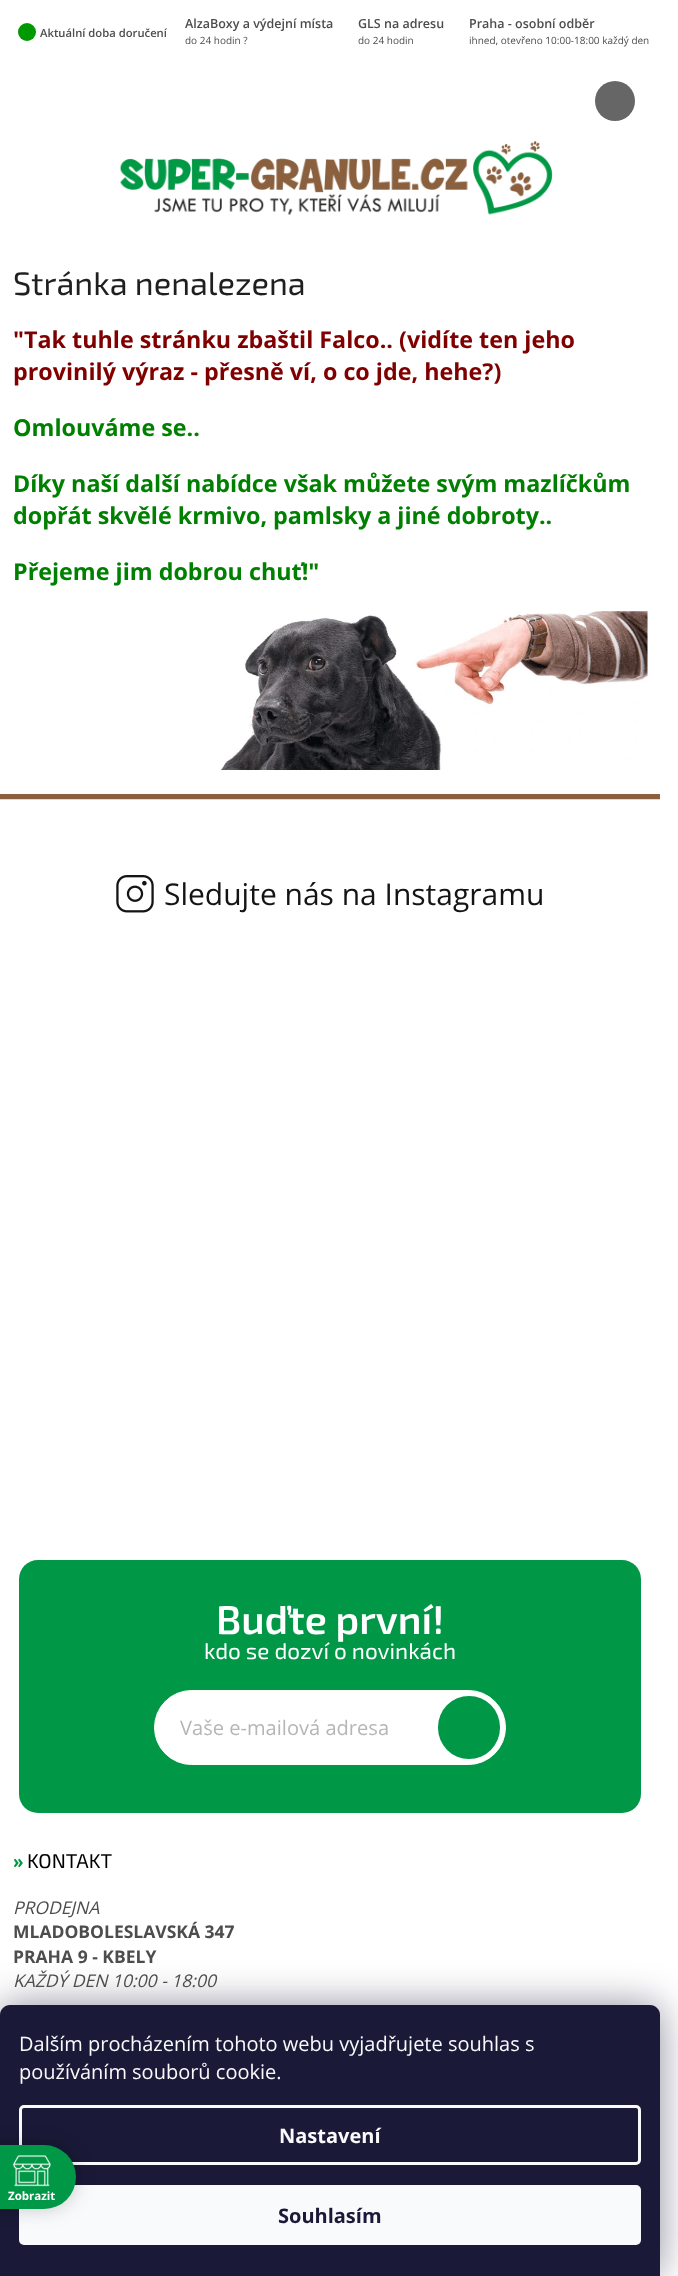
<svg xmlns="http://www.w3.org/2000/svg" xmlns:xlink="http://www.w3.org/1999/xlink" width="678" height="2276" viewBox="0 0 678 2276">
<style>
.cls-1{font:600 12.5px Open Sans;fill:#4d4d4d}
.cls-2{font:600 11.25px Open Sans;fill:#4d4d4d}
.cls-3{font:10px Open Sans;fill:#4d4d4d}
.cls-4{font:32.5px 'Exo 2';fill:#1f1f1f}
.cls-5{font:bold 23.3px Open Sans;fill:#800000}
.cls-6{font:bold 23.3px Open Sans;fill:#008000}
.cls-7{font:30px Open Sans;fill:#141414}
.cls-8{font:600 40px 'Exo 2';fill:#ffffff}
.cls-9{font:22.5px 'Exo 2';fill:#ffffff}
.cls-10{font:20.1px Open Sans;fill:#b6b6b6}
.cls-11{font:bold 20px 'Exo 2';fill:#009846}
.cls-12{font:20px 'Exo 2';fill:#000000}
.cls-13{font:italic 17.5px Open Sans;fill:#4d4d4d}
.cls-14{font:bold 17.5px Open Sans;fill:#4d4d4d}
.cls-15{font:20px Open Sans;fill:#f8fafb}
.cls-16{font:bold 20px Open Sans;fill:#f8fafb}
.cls-17{font:bold 20px Open Sans;fill:#1a1937}
.cls-18{font:bold 11.5px Open Sans;fill:#ffffff}
</style>
<rect width="100%" height="100%" fill="#ffffff"/>
<circle fill="#009901" cx="27" cy="32" r="9"/>
<circle fill="#666666" cx="615" cy="101" r="20"/>
<image xlink:href="image0.png" x="119" y="141" width="434" height="75"/>
<image xlink:href="image1.png" x="220" y="611" width="428" height="159"/>
<rect fill="#8b603e" x="0" y="794" width="660" height="5"/>
<rect fill="#dadada" x="0" y="799" width="660" height="1"/>
<image xlink:href="image2.png" x="116" y="875" width="38" height="38"/>
<rect fill="#009846" x="19" y="1560" width="622" height="253" rx="19"/>
<rect fill="#ffffff" stroke="#ffffff" x="154.5" y="1690.5" width="351" height="74" rx="37"/>
<rect fill="#009846" x="438" y="1696" width="62" height="63" rx="31"/>
<rect fill="#1b1939" fill-opacity="0.5" filter="blur(19px)" x="0" y="2005" width="660" height="271" rx="10"/>
<path fill="#1a1937" d="M10 2005H650C655.5 2005 660 2009.5 660 2015V2276H0V2015C0 2009.5 4.5 2005 10 2005Z"/>
<rect fill="none" stroke="#f8fafb" stroke-width="3" x="20.5" y="2106.5" width="619" height="57" rx="3.5"/>
<rect fill="#f8fafb" x="19" y="2185" width="622" height="60" rx="5"/>
<rect fill="#000000" fill-opacity="0.2" filter="blur(9.5px)" x="-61" y="2145" width="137" height="64" rx="32"/>
<rect fill="#009846" x="-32" y="2145" width="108" height="64" rx="32"/>
<image xlink:href="image3.png" x="12" y="2155" width="39" height="32"/>
<text class="cls-1" x="185" y="28">AlzaBoxy a výdejní místa</text>
<text class="cls-1" x="358" y="28">GLS na adresu</text>
<text class="cls-1" x="469" y="28">Praha - osobní odběr</text>
<text class="cls-2" x="40" y="37">Aktuální doba doručení</text>
<text class="cls-3" x="185" y="44">do 24 hodin ?</text>
<text class="cls-3" x="358" y="44">do 24 hodin</text>
<text class="cls-3" x="469" y="44">ihned, otevřeno 10:00-18:00 každý den</text>
<text class="cls-4" x="13" y="295">Stránka nenalezena</text>
<text class="cls-5"><tspan x="13" y="348">"Tak tuhle stránku zbaštil Falco.. (vidíte ten jeho</tspan><tspan x="13" y="380">provinilý výraz - přesně ví, o co jde, hehe?)</tspan></text>
<text class="cls-6" x="13" y="436">Omlouváme se..</text>
<text class="cls-6"><tspan x="13" y="492">Díky naší další nabídce však můžete svým mazlíčkům</tspan><tspan x="13" y="524">dopřát skvělé krmivo, pamlsky a jiné dobroty..</tspan></text>
<text class="cls-6" x="13" y="580">Přejeme jim dobrou chuť!"</text>
<text class="cls-7" x="164" y="905">Sledujte nás na Instagramu</text>
<text class="cls-8" x="216" y="1634">Buďte první!</text>
<text class="cls-9" x="204" y="1659">kdo se dozví o novinkách</text>
<text class="cls-10" x="180" y="1735">Vaše e-mailová adresa</text>
<text class="cls-11" x="13" y="1868">»</text>
<text class="cls-12" x="27" y="1868">KONTAKT</text>
<text class="cls-13" x="13" y="1914">PRODEJNA</text>
<text class="cls-14"><tspan x="13" y="1938">MLADOBOLESLAVSKÁ 347</tspan><tspan x="13" y="1963">PRAHA 9 - KBELY</tspan></text>
<text class="cls-13" x="13" y="1987">KAŽDÝ DEN 10:00 - 18:00</text>
<text class="cls-15"><tspan x="19" y="2051">Dalším procházením tohoto webu vyjadřujete souhlas s</tspan><tspan x="19" y="2079">používáním souborů cookie.</tspan></text>
<text class="cls-16" x="279" y="2143">Nastavení</text>
<text class="cls-17" x="278" y="2223">Souhlasím</text>
<text class="cls-18" x="8" y="2200">Zobrazit</text>
</svg>
